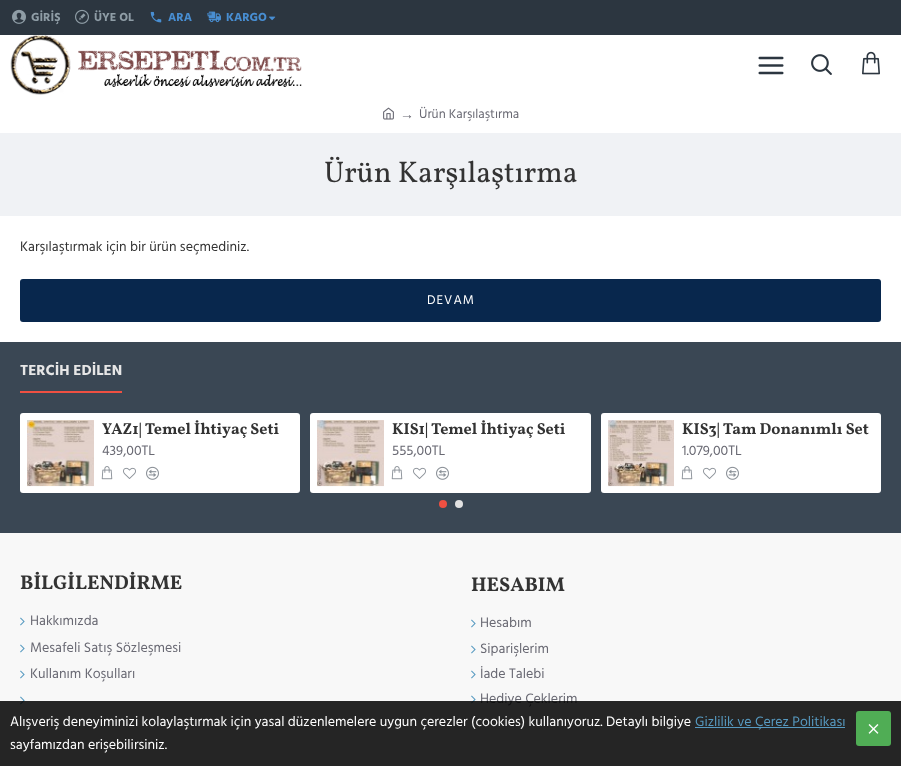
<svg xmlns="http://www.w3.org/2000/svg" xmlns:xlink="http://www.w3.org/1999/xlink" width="901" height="766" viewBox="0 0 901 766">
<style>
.cls-1{font:bold 12px Hind Madurai;fill:#8f9da6}
.cls-2{font:bold 12px Hind Madurai;fill:#488ed2}
.cls-3{font:14px Liberation Serif;fill:#696973}
.cls-4{font:13px Hind Madurai;fill:#696973}
.cls-5{font:30px Vollkorn;fill:#333333}
.cls-6{font:14px Hind Madurai;fill:#333333}
.cls-7{font:13px Hind Madurai;letter-spacing:1px;fill:#ffffff}
.cls-8{font:bold 15px Hind Madurai;fill:#e6e6e6}
.cls-9{font:bold 16px Vollkorn;fill:#333333}
.cls-10{font:14px Hind Madurai;fill:#696973}
.cls-11{font:bold 20px Vollkorn;fill:#333333}
.cls-12{font:14px Hind Madurai;fill:#ffffff}
.cls-13{font:14px Hind Madurai;fill:#579ac1}
</style>
<defs>
<clipPath id="clip1"><rect x="20" y="362" width="861" height="31"/></clipPath>
</defs>
<rect width="100%" height="100%" fill="#ffffff"/>
<rect fill="#2c3640" x="0" y="0" width="901" height="35"/>
<image xlink:href="image0.png" x="12" y="9" width="14" height="15"/>
<image xlink:href="image1.png" x="75" y="9" width="14" height="15"/>
<image xlink:href="image2.png" x="150" y="11" width="12" height="12"/>
<image xlink:href="image3.png" x="207" y="11" width="14" height="12"/>
<image xlink:href="image4.png" x="269" y="16" width="7" height="5"/>
<image xlink:href="image5.png" x="10" y="35" width="292" height="60"/>
<image xlink:href="image6.png" x="758" y="56" width="26" height="19"/>
<image xlink:href="image7.png" x="811" y="54" width="21" height="21"/>
<image xlink:href="image8.png" x="862" y="51" width="18" height="24"/>
<image xlink:href="image9.png" x="383" y="107" width="11" height="13"/>
<rect fill="#f0f2f5" x="0" y="133" width="901" height="83"/>
<rect fill="#08274d" x="20" y="279" width="861" height="43" rx="3"/>
<rect fill="#f8f8f8" x="0" y="533" width="901" height="233"/>
<rect fill="#3a4754" x="0" y="342" width="901" height="191"/>
<rect fill="#ef5042" x="20" y="391" width="102" height="2"/>
<rect fill="#ffffff" x="20" y="413" width="280" height="80" rx="3"/>
<image xlink:href="image10.png" x="27" y="420" width="67" height="67"/>
<image xlink:href="image11.png" x="101" y="466" width="12" height="14"/>
<image xlink:href="image12.png" x="123" y="467" width="13" height="12"/>
<image xlink:href="image13.png" x="146" y="466" width="13" height="14"/>
<rect fill="#ffffff" x="310" y="413" width="281" height="80" rx="3"/>
<image xlink:href="image14.png" x="317" y="420" width="67" height="67"/>
<image xlink:href="image11.png" x="391" y="466" width="12" height="14"/>
<image xlink:href="image12.png" x="413" y="467" width="13" height="12"/>
<image xlink:href="image13.png" x="436" y="466" width="13" height="14"/>
<rect fill="#ffffff" x="601" y="413" width="280" height="80" rx="3"/>
<image xlink:href="image15.png" x="608" y="420" width="66" height="67"/>
<image xlink:href="image11.png" x="681" y="466" width="12" height="14"/>
<image xlink:href="image12.png" x="703" y="467" width="13" height="12"/>
<image xlink:href="image13.png" x="726" y="466" width="13" height="14"/>
<circle fill="#ef5042" cx="443" cy="504" r="4"/>
<circle fill="#e2e2e2" cx="459" cy="504" r="4"/>
<image xlink:href="image16.png" x="20" y="617" width="5" height="9"/>
<image xlink:href="image16.png" x="20" y="644" width="5" height="9"/>
<image xlink:href="image16.png" x="20" y="670" width="5" height="9"/>
<image xlink:href="image16.png" x="20" y="696" width="5" height="9"/>
<image xlink:href="image16.png" x="471" y="619" width="5" height="9"/>
<image xlink:href="image16.png" x="471" y="645" width="5" height="9"/>
<image xlink:href="image16.png" x="471" y="670" width="5" height="9"/>
<image xlink:href="image16.png" x="471" y="695" width="5" height="9"/>
<text class="cls-1" x="31" y="21">GİRİŞ</text>
<text class="cls-1" x="94" y="21">ÜYE OL</text>
<text class="cls-2" x="168" y="21">ARA</text>
<text class="cls-2" x="226" y="21">KARGO</text>
<text class="cls-3" x="400" y="119">→</text>
<text class="cls-4" x="419" y="118">Ürün Karşılaştırma</text>
<text class="cls-5" x="324" y="182">Ürün Karşılaştırma</text>
<text class="cls-6" x="20" y="251">Karşılaştırmak için bir ürün seçmediniz.</text>
<text class="cls-7" x="427" y="304">DEVAM</text>
<g clip-path="url(#clip1)">
<text class="cls-8" x="20" y="375">TERCİH EDİLEN</text>
</g>
<text class="cls-9" x="102" y="434">YAZ1| Temel İhtiyaç Seti</text>
<text class="cls-10" x="102" y="455">439,00TL</text>
<text class="cls-9" x="392" y="434">KIS1| Temel İhtiyaç Seti</text>
<text class="cls-10" x="392" y="455">555,00TL</text>
<text class="cls-9" x="682" y="434">KIS3| Tam Donanımlı Set</text>
<text class="cls-10" x="682" y="455">1.079,00TL</text>
<text class="cls-11" x="20" y="589">BİLGİLENDİRME</text>
<text class="cls-10"><tspan x="30" y="625">Hakkımızda</tspan><tspan x="30" y="652">Mesafeli Satış Sözleşmesi</tspan><tspan x="30" y="678">Kullanım Koşulları</tspan></text>
<text class="cls-11" x="471" y="591">HESABIM</text>
<text class="cls-10"><tspan x="480" y="627">Hesabım</tspan><tspan x="480" y="653">Siparişlerim</tspan><tspan x="480" y="678">İade Talebi</tspan><tspan x="480" y="703">Hediye Çeklerim</tspan></text>
<rect fill="#000000" fill-opacity="0.85" x="0" y="701" width="901" height="65"/>
<text class="cls-12" x="10" y="726">Alışveriş deneyiminizi kolaylaştırmak için yasal düzenlemelere uygun çerezler (cookies) kullanıyoruz. Detaylı bilgiye</text>
<rect fill="#579ac1" x="695" y="727" width="150" height="1"/>
<text class="cls-13" x="695" y="726">Gizlilik ve Çerez Politikası</text>
<text class="cls-12" x="10" y="749">sayfamızdan erişebilirsiniz.</text>
<rect fill="#50ad55" x="856" y="711" width="35" height="35" rx="3"/>
<image xlink:href="image17.png" x="868" y="724" width="11" height="10"/>
</svg>
